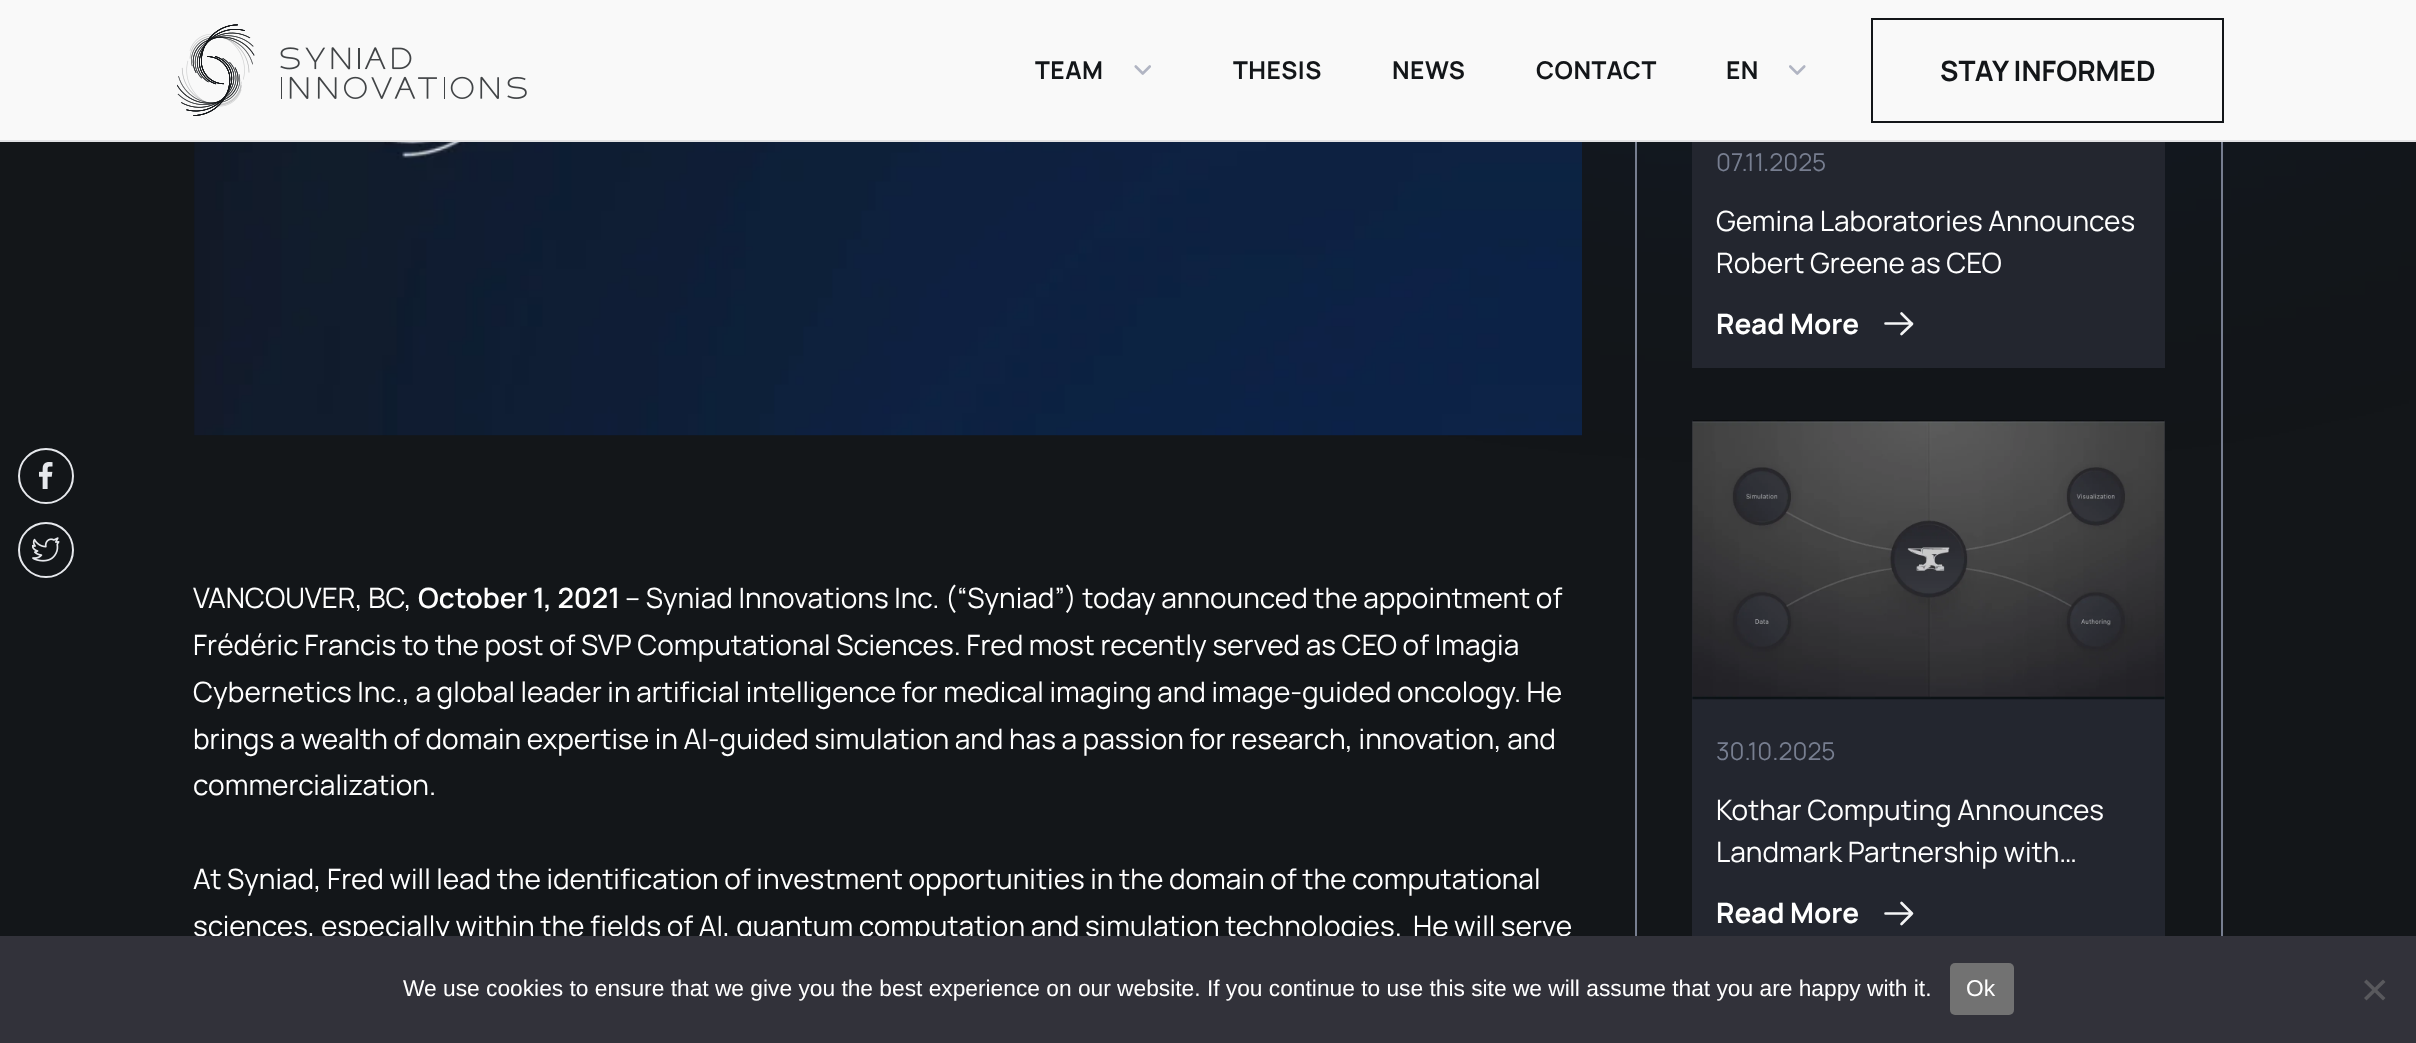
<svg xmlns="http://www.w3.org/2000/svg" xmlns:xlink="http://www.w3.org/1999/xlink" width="2416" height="1043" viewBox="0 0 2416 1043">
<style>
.cls-1{font:bold 24.5px Manrope;letter-spacing:0.5px;fill:#131619}
.cls-2{font:bold 28px Manrope;fill:#131619}
.cls-3{font:28px Manrope;fill:#ffffff}
.cls-4{font:600 28px Manrope;fill:#ffffff}
.cls-5{font:24.5px Manrope;fill:#777e90}
.cls-6{font:bold 28px Manrope;fill:#ffffff}
.cls-7{font:22.75px Liberation Sans;fill:#ffffff}
</style>
<rect width="100%" height="100%" fill="#131619"/>
<rect fill="#0041af" fill-opacity="0.3" filter="blur(262.5px)" x="1405" y="-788" width="910" height="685"/>
<rect fill="none" stroke="#777e90" stroke-width="2" x="1636" y="-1" width="586" height="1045"/>
<rect fill="#f9f9f9" x="0" y="0" width="2416" height="140"/>
<rect fill="#e2e2e4" x="0" y="140" width="2416" height="2"/>
<image xlink:href="image0.png" x="177" y="24" width="350" height="92"/>
<image xlink:href="image1.png" x="1134" y="65" width="17" height="10"/>
<image xlink:href="image2.png" x="1789" y="65" width="17" height="10"/>
<rect fill="none" stroke="#131619" stroke-width="2" x="1872" y="19" width="351" height="103"/>
<circle fill="none" stroke="#e6e8ec" stroke-width="2" cx="46" cy="476" r="27"/>
<image xlink:href="image3.png" x="39" y="462" width="14" height="27"/>
<circle fill="none" stroke="#e6e8ec" stroke-width="2" cx="46" cy="550" r="27"/>
<image xlink:href="image4.png" x="32" y="537" width="28" height="25"/>
<image xlink:href="image5.png" x="194" y="142" width="1388" height="294"/>
<rect fill="#23262f" x="1692" y="142" width="473" height="226"/>
<path fill="none" stroke="#f4f5f6" stroke-width="2.6" stroke-linecap="round" stroke-linejoin="round" d="M1885.5 323.5H1912M1901.5 334L1912 324L1901.5 313.5"/>
<rect fill="#23262f" x="1692" y="420" width="473" height="516"/>
<image xlink:href="image6.png" x="1692" y="420" width="473" height="280"/>
<path fill="none" stroke="#f4f5f6" stroke-width="2.6" stroke-linecap="round" stroke-linejoin="round" d="M1885.5 913.5H1912M1901.5 924L1912 913.5L1901.5 903"/>
<text class="cls-1" x="1035" y="79">TEAM</text>
<text class="cls-1" x="1233" y="79">THESIS</text>
<text class="cls-1" x="1392" y="79">NEWS</text>
<text class="cls-1" x="1536" y="79">CONTACT</text>
<text class="cls-1" x="1726" y="79">EN</text>
<text class="cls-2" x="1940" y="81">STAY INFORMED</text>
<text class="cls-3" x="193" y="608">VANCOUVER, BC,</text>
<text class="cls-4" x="418" y="608">October 1, 2021</text>
<text class="cls-3" x="625" y="608">– Syniad Innovations Inc. (“Syniad”) today announced the appointment of</text>
<text class="cls-3"><tspan x="193" y="655">Frédéric Francis to the post of SVP Computational Sciences. Fred most recently served as CEO of Imagia</tspan><tspan x="193" y="702">Cybernetics Inc., a global leader in artificial intelligence for medical imaging and image-guided oncology. He</tspan><tspan x="193" y="749">brings a wealth of domain expertise in AI-guided simulation and has a passion for research, innovation, and</tspan><tspan x="193" y="795">commercialization.</tspan></text>
<text class="cls-3" xml:space="preserve"><tspan x="193" y="889">At Syniad, Fred will lead the identification of investment opportunities in the domain of the computational</tspan><tspan x="193" y="936">sciences, especially within the fields of AI, quantum computation and simulation technologies.  He will serve</tspan></text>
<text class="cls-5" x="1716" y="171">07.11.2025</text>
<text class="cls-3"><tspan x="1716" y="231">Gemina Laboratories Announces</tspan><tspan x="1716" y="273">Robert Greene as CEO</tspan></text>
<text class="cls-6" x="1716" y="334">Read More</text>
<text class="cls-5" x="1716" y="760">30.10.2025</text>
<text class="cls-3"><tspan x="1716" y="820">Kothar Computing Announces</tspan><tspan x="1716" y="862">Landmark Partnership with…</tspan></text>
<text class="cls-6" x="1716" y="923">Read More</text>
<rect fill="#32323a" x="0" y="936" width="2416" height="107"/>
<text class="cls-7" x="403" y="996">We use cookies to ensure that we give you the best experience on our website. If you continue to use this site we will assume that you are happy with it.</text>
<rect fill="#727272" x="1950" y="963" width="64" height="52" rx="5"/>
<text class="cls-7" x="1966" y="996">Ok</text>
<path fill="#59595d" d="M2383 979.5L2385.5 982L2366.5 1000.5L2364 998Z"/>
<path fill="#59595d" d="M2364 982L2366.5 979.5L2385.5 998L2383 1000.5Z"/>
</svg>
